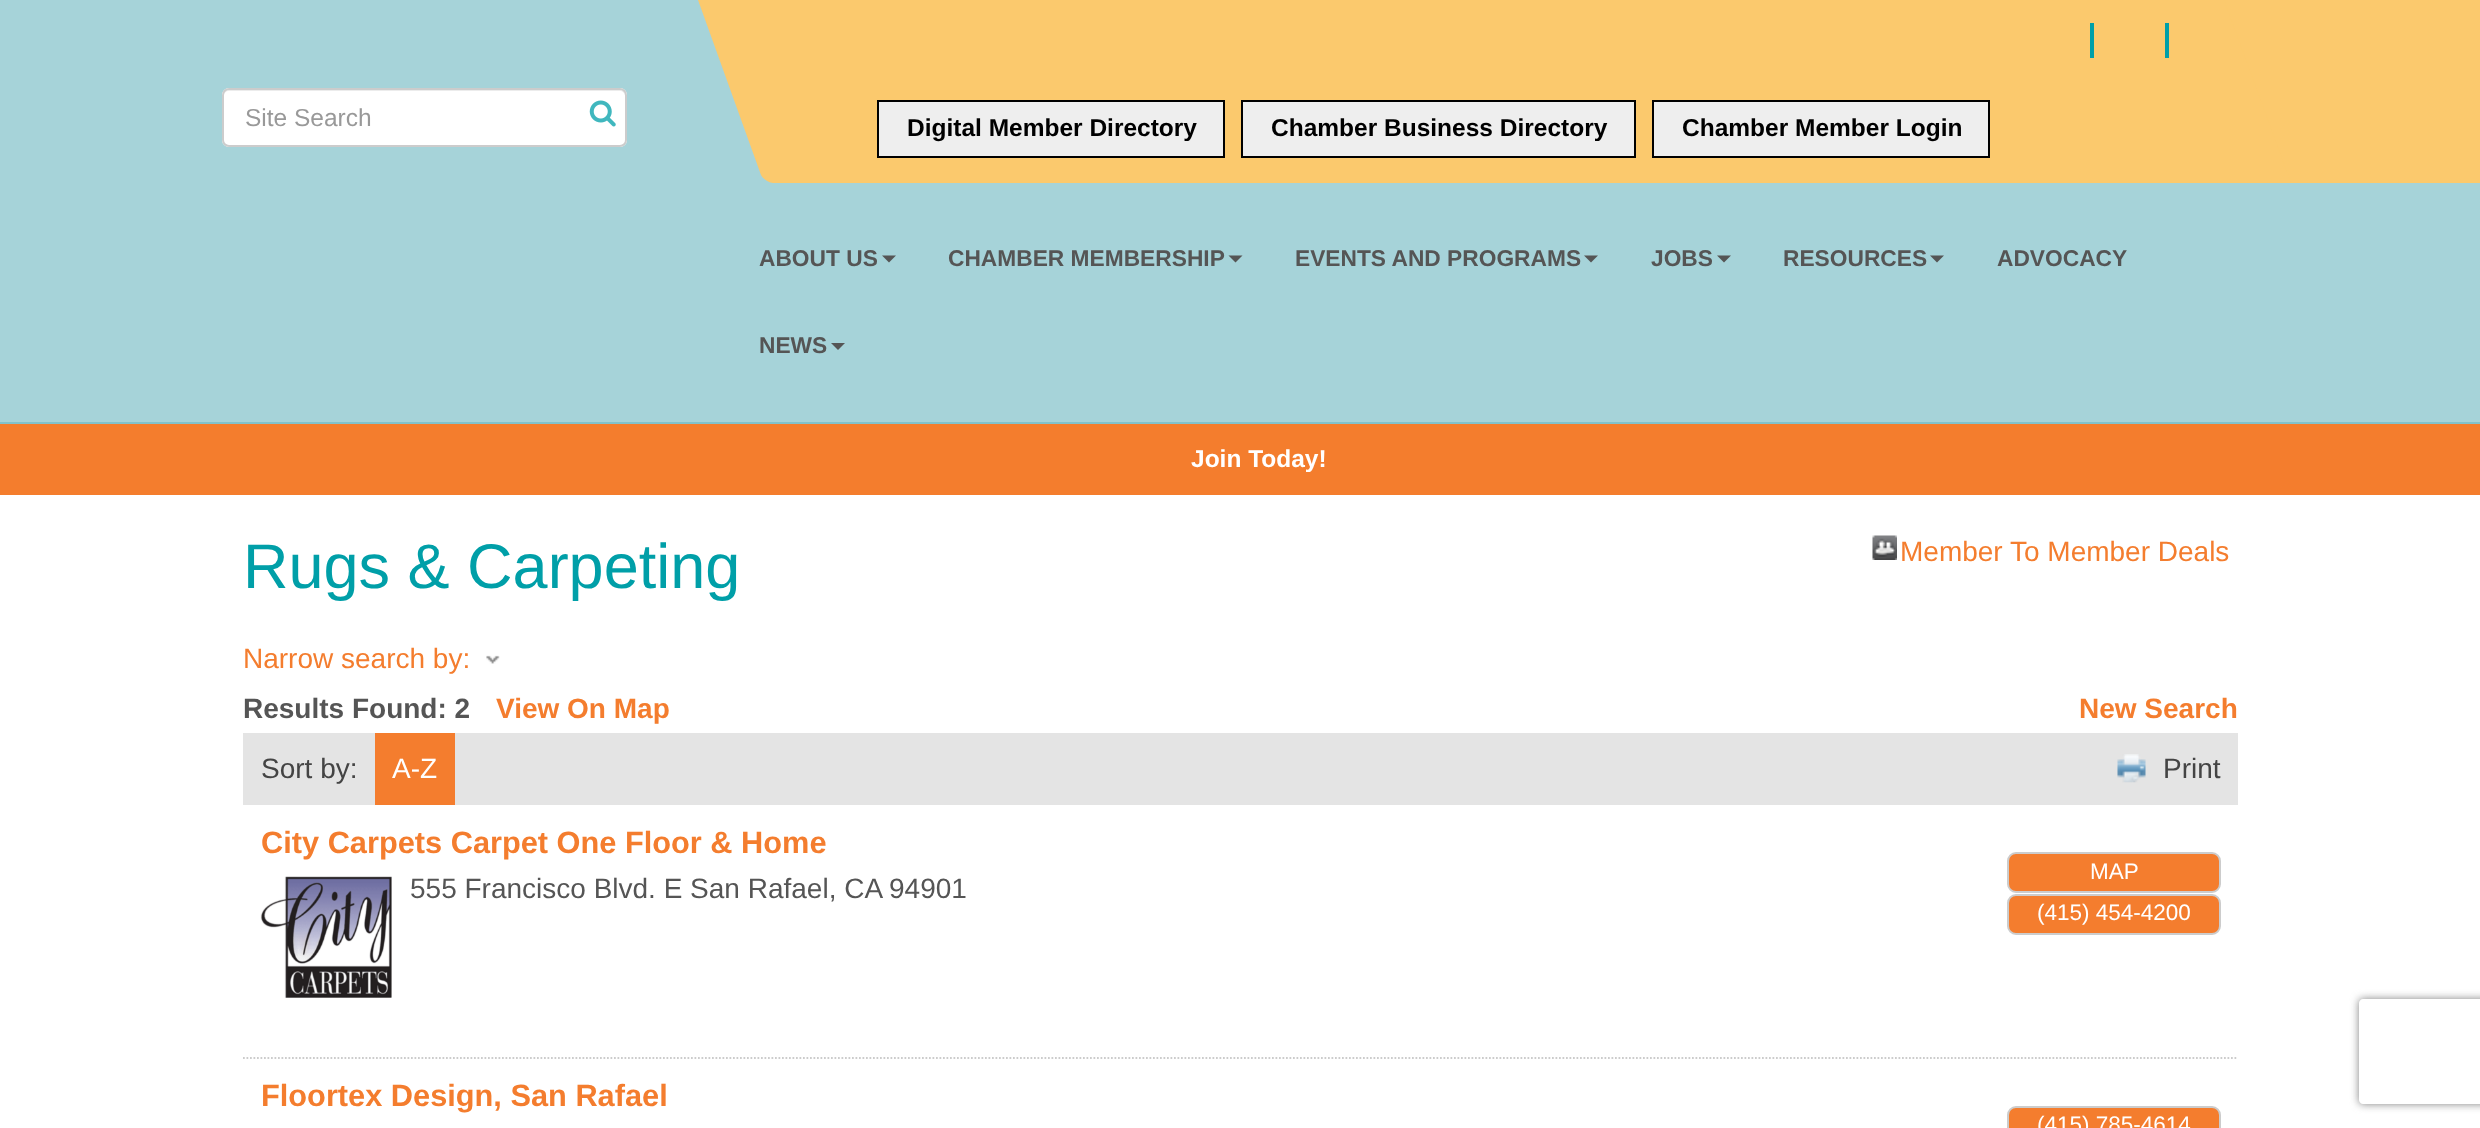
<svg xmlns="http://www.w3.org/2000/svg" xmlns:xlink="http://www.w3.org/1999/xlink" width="2480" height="1128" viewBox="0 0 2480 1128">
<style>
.cls-1{font:24.5px Liberation Sans;fill:#999999}
.cls-2{font:bold 24.5px Liberation Sans;fill:#000000}
.cls-3{font:bold 22.75px Liberation Sans;fill:#555555}
.cls-4{font:bold 24.5px Liberation Sans;fill:#ffffff}
.cls-5{font:63px Liberation Sans;fill:#009fa8}
.cls-6{font:28px Liberation Sans;fill:#f47d2e}
.cls-7{font:bold 28px Liberation Sans;fill:#555555}
.cls-8{font:bold 28px Liberation Sans;fill:#f47d2e}
.cls-9{font:28px Liberation Sans;fill:#444444}
.cls-10{font:28px Liberation Sans;fill:#ffffff}
.cls-11{font:bold 30.75px Liberation Sans;fill:#f47d2e}
.cls-12{font:28px Liberation Sans;fill:#555555}
.cls-13{font:22.5px Liberation Sans;fill:#ffffff}
</style>
<defs>
<clipPath id="clip1"><path d="M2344 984H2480V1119H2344ZM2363 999H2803C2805 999 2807 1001 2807 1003V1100C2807 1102 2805 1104 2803 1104H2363C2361 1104 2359 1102 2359 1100V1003C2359 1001 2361 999 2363 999Z" clip-rule="evenodd"/></clipPath>
</defs>
<rect width="100%" height="100%" fill="#ffffff"/>
<rect fill="#a6d3d9" x="0" y="0" width="2480" height="422"/>
<rect fill="#82c1ca" x="0" y="422" width="2480" height="2"/>
<rect fill="#ffffff" x="222" y="88" width="405" height="59" rx="7"/>
<path fill="#ececec" d="M229 91H620C622 91 625 93 625 96V94C625 91 623 89 620 89H229C226 89 224 91 224 94V96C224 93 226 91 229 91Z"/>
<rect fill="none" stroke="#cccccc" stroke-width="2" x="223" y="89" width="403" height="57" rx="6"/>
<image xlink:href="image0.png" x="589" y="100" width="27" height="27"/>
<path fill="#fbc96d" d="M698 0H2226L2293 183H773C769 183 763 179 761 175Z"/>
<rect fill="#009fa8" x="2090" y="23" width="4" height="35"/>
<rect fill="#009fa8" x="2165" y="23" width="4" height="35"/>
<rect fill="#eeeeee" stroke="#000000" stroke-width="2" x="878" y="101" width="346" height="56"/>
<rect fill="#eeeeee" stroke="#000000" stroke-width="2" x="1242" y="101" width="393" height="56"/>
<rect fill="#eeeeee" stroke="#000000" stroke-width="2" x="1653" y="101" width="336" height="56"/>
<path fill="#fbc96d" d="M2224 0H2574L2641 183H2291Z"/>
<path fill="#555555" d="M882 255.5H896L889 262.5Z"/>
<path fill="#555555" d="M1228.5 255.5H1242.5L1235.5 262.5Z"/>
<path fill="#555555" d="M1584 255.5H1598L1591 262.5Z"/>
<path fill="#555555" d="M1717 255.5H1731L1724 262.5Z"/>
<path fill="#555555" d="M1930 255.5H1944L1937 262.5Z"/>
<path fill="#555555" d="M831 343H845L838 350Z"/>
<rect fill="#f47d2d" x="0" y="424" width="2480" height="71"/>
<image xlink:href="image1.png" x="1872" y="535" width="25" height="25"/>
<image xlink:href="image2.png" x="486" y="655" width="14" height="9"/>
<rect fill="#e4e4e4" x="243" y="733" width="1995" height="72"/>
<rect fill="#f47d2e" x="375" y="733" width="80" height="72"/>
<image xlink:href="image3.png" x="2117" y="754" width="29" height="29"/>
<path fill="none" stroke="#cccccc" stroke-width="1.8" stroke-dasharray="1.75 1.75" d="M243 1058H2238"/>
<image xlink:href="image4.png" x="260" y="876" width="132" height="122"/>
<rect fill="#f47d2e" stroke="#cccccc" stroke-width="2" x="2008" y="853" width="212" height="39" rx="8"/>
<rect fill="#f47d2e" stroke="#cccccc" stroke-width="2" x="2008" y="895" width="212" height="39" rx="8"/>
<rect fill="#f47d2e" stroke="#cccccc" stroke-width="2" x="2008" y="1107" width="212" height="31" rx="8"/>
<g clip-path="url(#clip1)">
<rect fill="#808080" filter="blur(4.5px)" x="2359" y="999" width="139" height="105" rx="4"/>
</g>
<text class="cls-1" x="245" y="126">Site Search</text>
<text class="cls-2" x="907" y="136">Digital Member Directory</text>
<text class="cls-2" x="1271" y="136">Chamber Business Directory</text>
<text class="cls-2" x="1682" y="136">Chamber Member Login</text>
<text class="cls-3" x="759" y="266">ABOUT US</text>
<text class="cls-3" x="948" y="266">CHAMBER MEMBERSHIP</text>
<text class="cls-3" x="1295" y="266">EVENTS AND PROGRAMS</text>
<text class="cls-3" x="1651" y="266">JOBS</text>
<text class="cls-3" x="1783" y="266">RESOURCES</text>
<text class="cls-3" x="1997" y="266">ADVOCACY</text>
<text class="cls-3" x="759" y="353">NEWS</text>
<text class="cls-4" x="1191" y="467">Join Today!</text>
<text class="cls-5" x="243" y="588">Rugs &amp; Carpeting</text>
<text class="cls-6" x="1900" y="561">Member To Member Deals</text>
<text class="cls-6" x="243" y="668">Narrow search by:</text>
<text class="cls-7" x="243" y="718">Results Found: 2</text>
<text class="cls-8" x="496" y="718">View On Map</text>
<text class="cls-8" x="2079" y="718">New Search</text>
<text class="cls-9" x="261" y="778">Sort by:</text>
<text class="cls-10" x="392" y="778">A-Z</text>
<text class="cls-9" x="2163" y="778">Print</text>
<text class="cls-11" x="261" y="853">City Carpets Carpet One Floor &amp; Home</text>
<text class="cls-12" x="410" y="898">555 Francisco Blvd. E San Rafael, CA</text>
<text class="cls-12" x="889" y="898">94901</text>
<text class="cls-13" x="2090" y="879">MAP</text>
<text class="cls-13" x="2037" y="920">(415) 454-4200</text>
<text class="cls-11" x="261" y="1106">Floortex Design, San Rafael</text>
<text class="cls-13" x="2037" y="1132">(415) 785-4614</text>
</svg>
